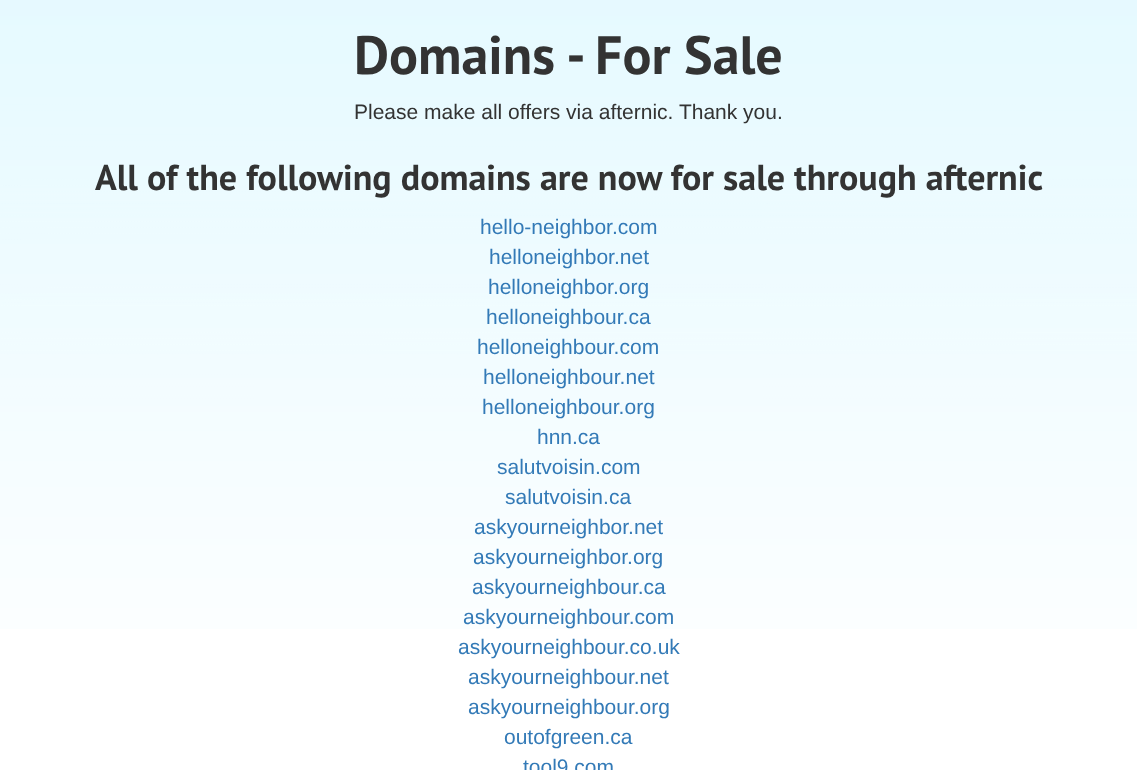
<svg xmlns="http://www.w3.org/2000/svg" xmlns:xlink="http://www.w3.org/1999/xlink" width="1137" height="770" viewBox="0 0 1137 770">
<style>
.cls-1{font:bold 54px PT Sans;fill:#333333}
.cls-2{font:21px Liberation Sans;fill:#333333}
.cls-3{font:bold 36px PT Sans;fill:#333333}
.cls-4{font:21px Liberation Sans;fill:#337ab7}
</style>
<rect width="100%" height="100%" fill="#ffffff"/>
<image xlink:href="image0.png" x="0" y="0" width="1137" height="629"/>
<text class="cls-1" x="354" y="74">Domains - For Sale</text>
<text class="cls-2" x="354" y="119">Please make all offers via afternic. Thank you.</text>
<text class="cls-3" x="95" y="190">All of the following domains are now for sale through afternic</text>
<text class="cls-4" x="480" y="234">hello-neighbor.com</text>
<text class="cls-4" x="489" y="264">helloneighbor.net</text>
<text class="cls-4" x="488" y="294">helloneighbor.org</text>
<text class="cls-4" x="486" y="324">helloneighbour.ca</text>
<text class="cls-4" x="477" y="354">helloneighbour.com</text>
<text class="cls-4" x="483" y="384">helloneighbour.net</text>
<text class="cls-4" x="482" y="414">helloneighbour.org</text>
<text class="cls-4" x="537" y="444">hnn.ca</text>
<text class="cls-4" x="497" y="474">salutvoisin.com</text>
<text class="cls-4" x="505" y="504">salutvoisin.ca</text>
<text class="cls-4" x="474" y="534">askyourneighbor.net</text>
<text class="cls-4" x="473" y="564">askyourneighbor.org</text>
<text class="cls-4" x="472" y="594">askyourneighbour.ca</text>
<text class="cls-4" x="463" y="624">askyourneighbour.com</text>
<text class="cls-4" x="458" y="654">askyourneighbour.co.uk</text>
<text class="cls-4"><tspan x="468" y="684">askyourneighbour.net</tspan><tspan x="468" y="714">askyourneighbour.org</tspan></text>
<text class="cls-4" x="504" y="744">outofgreen.ca</text>
<text class="cls-4" x="523" y="774">tool9.com</text>
</svg>
